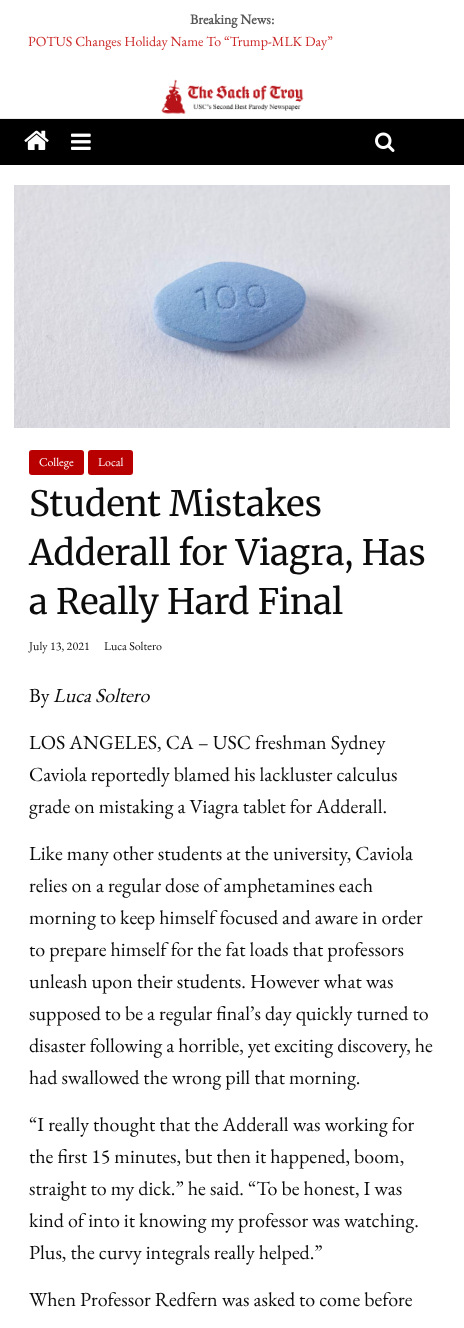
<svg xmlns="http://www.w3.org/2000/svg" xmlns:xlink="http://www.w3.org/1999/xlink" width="464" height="1328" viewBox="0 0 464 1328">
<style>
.cls-1{font:bold 14px EB Garamond;fill:#555555}
.cls-2{font:14px EB Garamond;fill:#cc2828}
.cls-3{font:12px EB Garamond;fill:#ffffff}
.cls-4{font:300 35px Merriweather;fill:#0c0c0c}
.cls-5{font:12px EB Garamond;fill:#0c0c0c}
.cls-6{font:20px EB Garamond;fill:#0c0c0c}
.cls-7{font:italic 20px EB Garamond;fill:#0c0c0c}
</style>
<rect width="100%" height="100%" fill="#ffffff"/>
<image xlink:href="image0.png" x="161" y="79" width="143" height="35"/>
<rect fill="#eaeaea" x="0" y="118" width="464" height="1"/>
<rect fill="#000000" x="0" y="119" width="464" height="46"/>
<image xlink:href="image1.png" x="24" y="130" width="25" height="20"/>
<image xlink:href="image2.png" x="71" y="133" width="20" height="17"/>
<image xlink:href="image3.png" x="375" y="132" width="20" height="20"/>
<image xlink:href="image4.png" x="14" y="185" width="436" height="243"/>
<rect fill="#b90000" x="29" y="450" width="55" height="25" rx="3"/>
<rect fill="#b90000" x="88" y="450" width="45" height="25" rx="3"/>
<text class="cls-1" x="190" y="24">Breaking News:</text>
<text class="cls-2" x="28" y="46">POTUS Changes Holiday Name To “Trump-MLK Day”</text>
<text class="cls-3" x="39" y="466">College</text>
<text class="cls-3" x="98" y="466">Local</text>
<text class="cls-4"><tspan x="29" y="516">Student Mistakes</tspan><tspan x="29" y="565">Adderall for Viagra, Has</tspan><tspan x="29" y="614">a Really Hard Final</tspan></text>
<text class="cls-5" x="29" y="650">July 13, 2021</text>
<text class="cls-5" x="104" y="650">Luca Soltero</text>
<text class="cls-6" x="29" y="702">By</text>
<text class="cls-7" x="53" y="702">Luca Soltero</text>
<text class="cls-6"><tspan x="29" y="749">LOS ANGELES, CA – USC freshman Sydney</tspan><tspan x="29" y="781">Caviola reportedly blamed his lackluster calculus</tspan><tspan x="29" y="813">grade on mistaking a Viagra tablet for Adderall.</tspan></text>
<text class="cls-6"><tspan x="29" y="860">Like many other students at the university, Caviola</tspan><tspan x="29" y="892">relies on a regular dose of amphetamines each</tspan><tspan x="29" y="924">morning to keep himself focused and aware in order</tspan><tspan x="29" y="956">to prepare himself for the fat loads that professors</tspan><tspan x="29" y="988">unleash upon their students. However what was</tspan><tspan x="29" y="1020">supposed to be a regular final’s day quickly turned to</tspan><tspan x="29" y="1052">disaster following a horrible, yet exciting discovery, he</tspan><tspan x="29" y="1084">had swallowed the wrong pill that morning.</tspan></text>
<text class="cls-6"><tspan x="29" y="1131">“I really thought that the Adderall was working for</tspan><tspan x="29" y="1163">the first 15 minutes, but then it happened, boom,</tspan><tspan x="29" y="1195">straight to my dick.” he said. “To be honest, I was</tspan><tspan x="29" y="1227">kind of into it knowing my professor was watching.</tspan><tspan x="29" y="1259">Plus, the curvy integrals really helped.”</tspan></text>
<text class="cls-6" x="29" y="1306">When Professor Redfern was asked to come before</text>
</svg>
